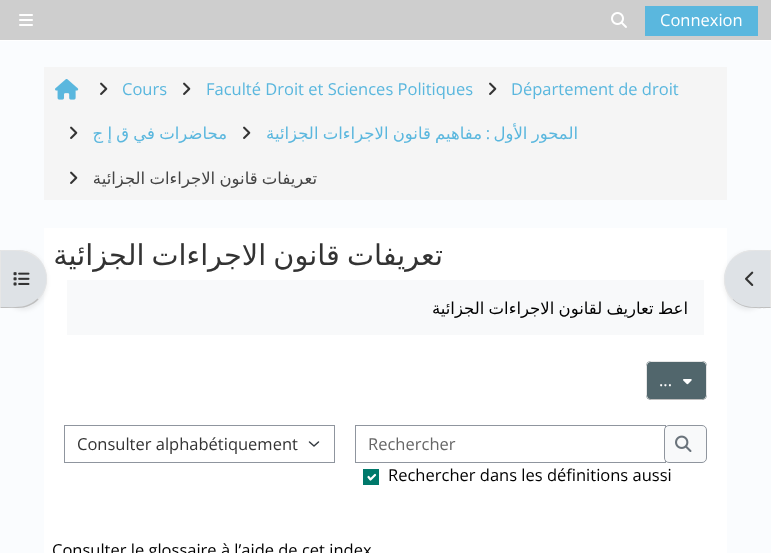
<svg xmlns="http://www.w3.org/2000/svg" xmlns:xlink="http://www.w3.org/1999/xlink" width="771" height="553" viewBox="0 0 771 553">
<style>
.cls-1{font:16.5px Open Sans;fill:#ffffff}
.cls-2{font:16.5px Open Sans;fill:#5ab7de}
.cls-3{font:16.5px DejaVu Sans;direction:rtl;fill:#5ab7de}
.cls-4{font:16.5px Open Sans;direction:rtl;fill:#5ab7de}
.cls-5{font:16.5px DejaVu Sans;direction:rtl;fill:#444444}
.cls-6{font:28.75px DejaVu Sans;direction:rtl;fill:#333333}
.cls-7{font:16.5px DejaVu Sans;direction:rtl;fill:#000000}
.cls-8{font:16.5px Open Sans;fill:#333333}
.cls-9{font:16.5px Open Sans;fill:#666666}
.cls-10{font:16.5px Open Sans;fill:#000000}
</style>
<defs>
<clipPath id="clip1"><rect x="83" y="296" width="605" height="23"/></clipPath>
</defs>
<rect width="100%" height="100%" fill="#fafcfe"/>
<rect fill="#cecece" x="0" y="0" width="771" height="40"/>
<rect fill="#ffffff" x="0" y="40" width="771" height="1"/>
<image xlink:href="image0.png" x="19" y="14" width="14" height="12"/>
<image xlink:href="image1.png" x="611" y="12" width="16" height="16"/>
<rect fill="#5ab7de" x="645" y="6" width="113" height="30"/>
<rect fill="#ffffff" x="44" y="228" width="683" height="325"/>
<rect fill="#000000" fill-opacity="0.07" filter="blur(2px)" x="0" y="252" width="47" height="58" rx="29"/>
<path fill="#dee2e6" d="M0 250H18C34 250 47 263 47 279C47 295 34 308 18 308H0Z"/>
<path fill="#e6e6e6" d="M0 250L1 251C14.5 251 27 249 37.5 259.5L38.5 258.5C33 253 26 250 18 250Z"/>
<path fill="#e6e6e6" d="M38 258C50 270 50 288 38 300V299C49 288 49 270 38 259Z"/>
<path fill="#bfbfbf" d="M18 308C26 308 33 305 38.5 299.5L37.5 298.5C27 309 14.5 307 1 307L0 308Z"/>
<path fill="#e6e6e6" d="M1 251L0 250V308L1 307Z"/>
<image xlink:href="image2.png" x="13" y="272" width="17" height="14"/>
<rect fill="#f5f5f5" x="44" y="67" width="683" height="133"/>
<image xlink:href="image3.png" x="55" y="79" width="24" height="21"/>
<image xlink:href="image4.png" x="100" y="82" width="8" height="13"/>
<image xlink:href="image4.png" x="183" y="82" width="8" height="13"/>
<image xlink:href="image4.png" x="489" y="82" width="8" height="13"/>
<image xlink:href="image4.png" x="70" y="126" width="8" height="13"/>
<image xlink:href="image4.png" x="243" y="126" width="8" height="13"/>
<image xlink:href="image4.png" x="70" y="171" width="8" height="13"/>
<rect fill="#f8f9fa" x="67" y="280" width="637" height="55"/>
<rect fill="#51666c" x="646" y="361" width="61" height="39" rx="5"/>
<path fill="none" stroke="#bfbfbf" d="M705 398C704.5 399 703 399.5 702 399.5H651C650 399.5 648.5 399 648 398"/>
<path fill="none" stroke="#e6e6e6" d="M648 398C647 397.5 646.5 396 646.5 395V366C646.5 365 647 363.5 648 363C648.5 362 650 361.5 651 361.5H702C703 361.5 704.5 362 705 363C706 363.5 706.5 365 706.5 366V395C706.5 396 706 397.5 705 398"/>
<image xlink:href="image5.png" x="683" y="379" width="9" height="6"/>
<path fill="none" stroke="#343a40" stroke-width="1.5" stroke-linecap="round" stroke-linejoin="round" d="M309.5 442L314 446L318.5 442"/>
<rect fill="none" stroke="#8f959e" x="64.5" y="425.5" width="270" height="37"/>
<rect fill="none" stroke="#8f959e" x="355.5" y="425.5" width="310" height="37"/>
<rect fill="#f8f9fa" stroke="#8f959e" x="664.5" y="425.5" width="42" height="37" rx="4.5"/>
<image xlink:href="image6.png" x="675" y="435" width="17" height="17"/>
<rect fill="#00796b" x="363" y="469" width="16" height="16"/>
<path fill="none" stroke="#ffffff" stroke-width="2.2" stroke-linecap="round" stroke-linejoin="round" d="M368.5 477L370.5 479.5L375 475"/>
<rect fill="#000000" fill-opacity="0.07" filter="blur(2px)" x="724" y="252" width="47" height="58" rx="29"/>
<path fill="#dee2e6" d="M753 250H771V308H753C737 308 724 295 724 279C724 263 737 250 753 250Z"/>
<path fill="#e6e6e6" d="M753 250C744.5 250 737.5 253.5 732.5 258.5L733 259C743 249 757 251 770 251L771 250Z"/>
<path fill="#e6e6e6" d="M771 250L770 251V307L771 308Z"/>
<path fill="#bfbfbf" d="M771 308C757.5 308 743 310 732.5 299.5L733 299C743 309 757 307 770 307Z"/>
<path fill="#e6e6e6" d="M733 259C722 270 721 288 732 300L733 299C722 288 723 270 733 259Z"/>
<image xlink:href="image7.png" x="745" y="271" width="9" height="15"/>
<text class="cls-1" x="660" y="26">Connexion</text>
<text class="cls-2" x="122" y="95">Cours</text>
<text class="cls-2" x="206" y="95">Faculté Droit et Sciences Politiques</text>
<text class="cls-2" x="511" y="95">Département de droit</text>
<text class="cls-3" x="227" y="139" word-spacing="-1">محاضرات في ق إ ج</text>
<text class="cls-3" x="482" y="139" word-spacing="-1">مفاهيم قانون الاجراءات الجزائية</text>
<text class="cls-4" x="490" y="139">:</text>
<text class="cls-3" x="578" y="139" word-spacing="-1">المحور الأول</text>
<text class="cls-5" x="317" y="184" word-spacing="-1">تعريفات قانون الاجراءات الجزائية</text>
<text class="cls-6" x="443" y="265" word-spacing="-2">تعريفات قانون الاجراءات الجزائية</text>
<g clip-path="url(#clip1)">
<text class="cls-7" x="688" y="314" word-spacing="-1">اعط تعاريف لقانون الاجراءات الجزائية</text>
</g>
<text class="cls-1" x="659" y="386">...</text>
<text class="cls-8" x="77" y="450">Consulter alphabétiquement</text>
<text class="cls-9" x="368" y="450">Rechercher</text>
<text class="cls-10" x="388" y="481">Rechercher dans les définitions aussi</text>
<text class="cls-10" x="52" y="556">Consulter le glossaire à l’aide de cet index</text>
</svg>
